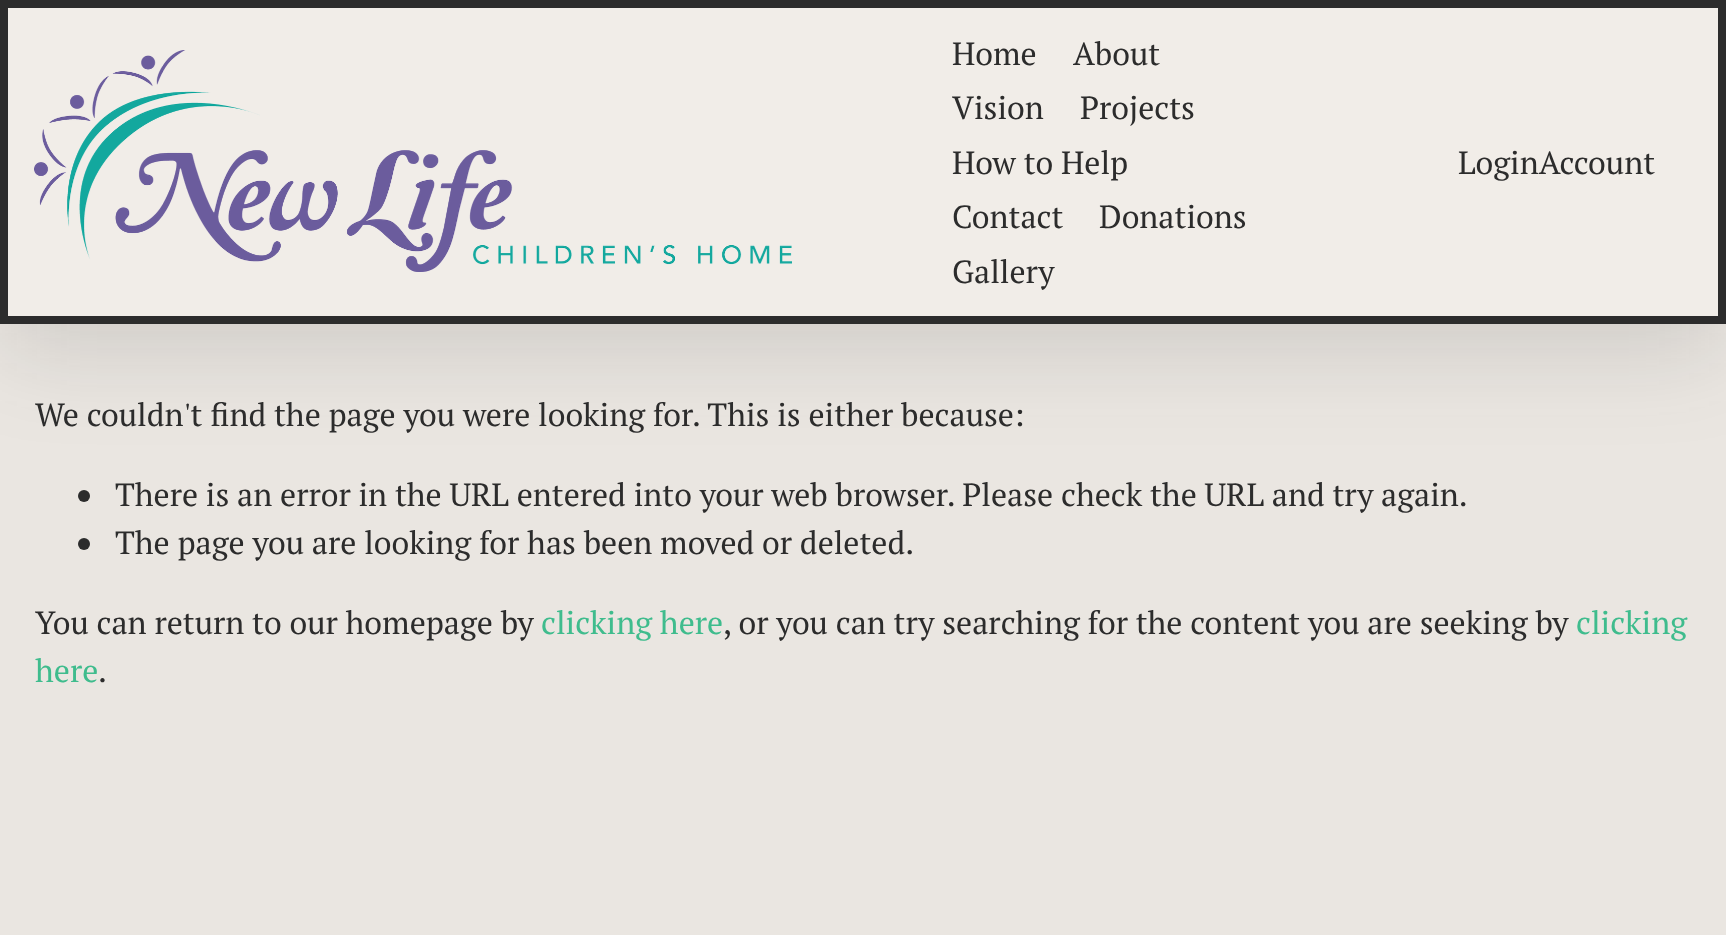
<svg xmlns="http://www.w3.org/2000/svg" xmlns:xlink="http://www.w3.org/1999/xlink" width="1726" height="935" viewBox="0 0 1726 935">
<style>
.cls-1{font:32px PT Serif;fill:#2c2c2c}
.cls-2{font:32px PT Serif;fill:#3fbc8d}
</style>
<rect width="100%" height="100%" fill="#eae6e1"/>
<circle fill="#2c2c2c" cx="84" cy="496" r="6"/>
<rect fill="#2c2c2c" fill-opacity="0.15" filter="blur(48px)" x="0" y="24" width="1726" height="324"/>
<rect fill="#f1ede8" stroke="#2c2c2c" stroke-width="8" x="4" y="4" width="1718" height="316"/>
<image xlink:href="image0.png" x="34" y="50" width="758" height="222"/>
<circle fill="#2c2c2c" cx="84" cy="544" r="6"/>
<text class="cls-1" x="952" y="65">Home</text>
<text class="cls-1" x="1073" y="65">About</text>
<text class="cls-1" x="952" y="119">Vision</text>
<text class="cls-1" x="1080" y="119">Projects</text>
<text class="cls-1"><tspan x="952" y="174">How to Help</tspan><tspan x="952" y="228">Contact</tspan></text>
<text class="cls-1" x="1099" y="228">Donations</text>
<text class="cls-1" x="952" y="283">Gallery</text>
<text class="cls-1" x="1458" y="174">LoginAccount</text>
<text class="cls-1" x="35" y="426">We couldn't find the page you were looking for. This is either because:</text>
<text class="cls-1"><tspan x="115" y="506">There is an error in the URL entered into your web browser. Please check the URL and try again.</tspan><tspan x="115" y="554">The page you are looking for has been moved or deleted.</tspan></text>
<text class="cls-1" x="35" y="634">You can return to our homepage by</text>
<text class="cls-2" x="541" y="634">clicking here</text>
<text class="cls-1" x="723" y="634">, or you can try searching for the content you are seeking by</text>
<text class="cls-2" x="1576" y="634">clicking</text>
<text class="cls-2" x="35" y="682">here</text>
<text class="cls-1" x="98" y="682">.</text>
</svg>
